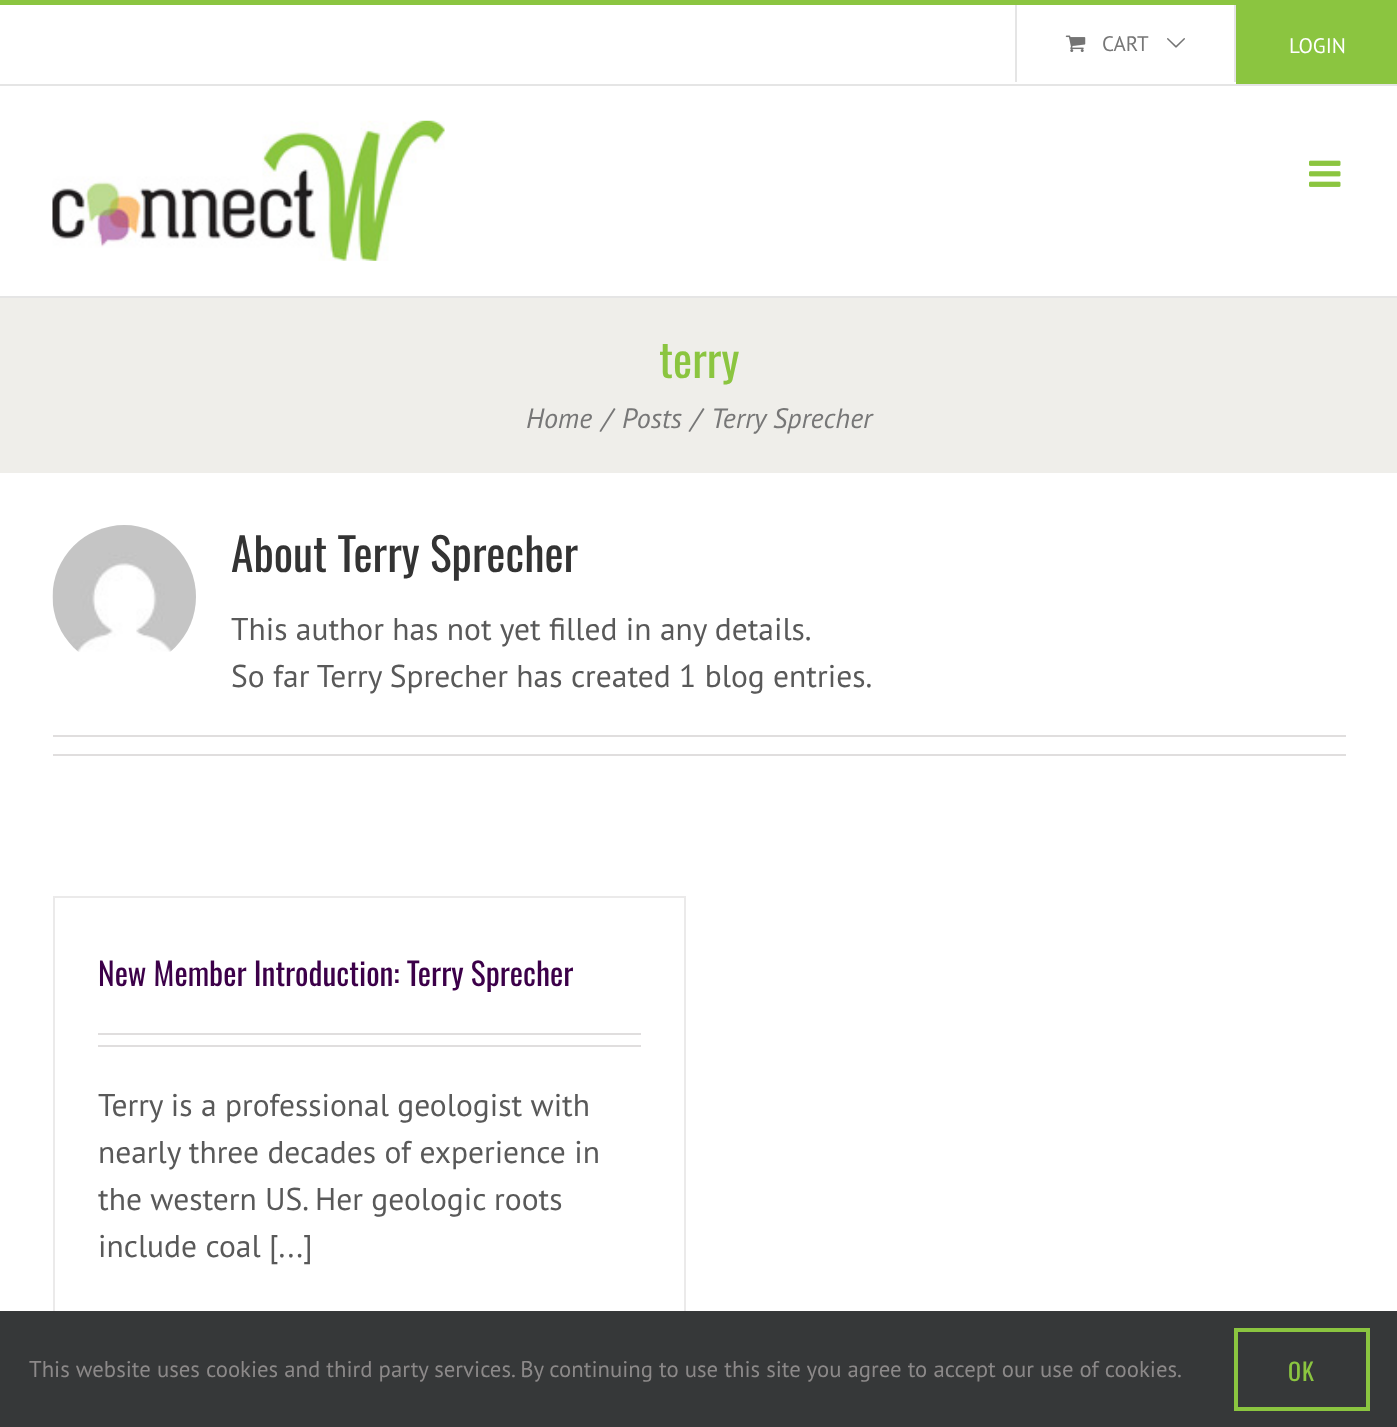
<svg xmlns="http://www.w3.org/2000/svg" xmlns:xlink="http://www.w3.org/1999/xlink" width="1397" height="1427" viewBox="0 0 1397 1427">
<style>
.cls-1{font:21px PT Sans;fill:#777777}
.cls-2{font:21px PT Sans;fill:#ffffff}
.cls-3{font:45.5px Oswald;fill:#8bc540}
.cls-4{font:italic 28px PT Sans;fill:#777777}
.cls-5{font:45.5px Oswald;fill:#333333}
.cls-6{font:31.5px PT Sans;fill:#595959}
.cls-7{font:31.5px Oswald;fill:#3c0049}
.cls-8{font:22.75px PT Sans;fill:#8c8989}
.cls-9{font:24px Oswald;letter-spacing:1px;fill:#8bc540}
</style>
<rect width="100%" height="100%" fill="#ffffff"/>
<rect fill="#8bc540" x="0" y="0" width="1397" height="5"/>
<rect fill="#e5e5e5" x="0" y="84" width="1397" height="2"/>
<rect fill="#e5e5e5" x="1015" y="5" width="2" height="77"/>
<rect fill="#e5e5e5" x="1234" y="5" width="2" height="77"/>
<image xlink:href="image0.png" x="1065" y="35" width="21" height="17"/>
<image xlink:href="image1.png" x="1167" y="38" width="18" height="10"/>
<rect fill="#8bc540" x="1236" y="5" width="161" height="79"/>
<rect fill="#e5e5e5" x="0" y="296" width="1397" height="2"/>
<image xlink:href="image2.png" x="52" y="120" width="393" height="141"/>
<image xlink:href="image3.png" x="1309" y="160" width="32" height="27"/>
<rect fill="#efeeea" x="0" y="298" width="1397" height="175"/>
<image xlink:href="image4.png" x="52" y="525" width="144" height="127"/>
<rect fill="#e0dede" x="53" y="735" width="1293" height="2"/>
<rect fill="#e0dede" x="53" y="754" width="1293" height="2"/>
<rect fill="#ebeaea" x="53" y="896" width="633" height="2"/>
<rect fill="#ebeaea" x="684" y="896" width="2" height="415"/>
<rect fill="#ebeaea" x="53" y="896" width="2" height="415"/>
<rect fill="#e0dede" x="98" y="1033" width="543" height="2"/>
<rect fill="#e0dede" x="98" y="1045" width="543" height="2"/>
<rect fill="#363839" x="0" y="1311" width="1397" height="116"/>
<rect fill="none" stroke="#8bc540" stroke-width="4" x="1236" y="1330" width="132" height="79"/>
<text class="cls-1" x="1102" y="51">CART</text>
<text class="cls-2" x="1289" y="53">LOGIN</text>
<text class="cls-3" x="659" y="378">terry</text>
<text class="cls-4" x="526" y="428">Home</text>
<text class="cls-4" x="602" y="428">/</text>
<text class="cls-4" x="622" y="428">Posts</text>
<text class="cls-4" x="691" y="428">/</text>
<text class="cls-4" x="711" y="428">Terry Sprecher</text>
<text class="cls-5" x="231" y="572">About Terry Sprecher</text>
<text class="cls-6"><tspan x="231" y="640">This author has not yet filled in any details.</tspan><tspan x="231" y="687">So far Terry Sprecher has created 1 blog entries.</tspan></text>
<text class="cls-7" x="98" y="986">New Member Introduction: Terry Sprecher</text>
<text class="cls-6"><tspan x="98" y="1116">Terry is a professional geologist with</tspan><tspan x="98" y="1163">nearly three decades of experience in</tspan><tspan x="98" y="1210">the western US. Her geologic roots</tspan><tspan x="98" y="1257">include coal [...]</tspan></text>
<text class="cls-8" x="29" y="1377">This website uses cookies and third party services. By continuing to use this site you agree to accept our use of cookies.</text>
<text class="cls-9" x="1288" y="1381">OK</text>
</svg>
